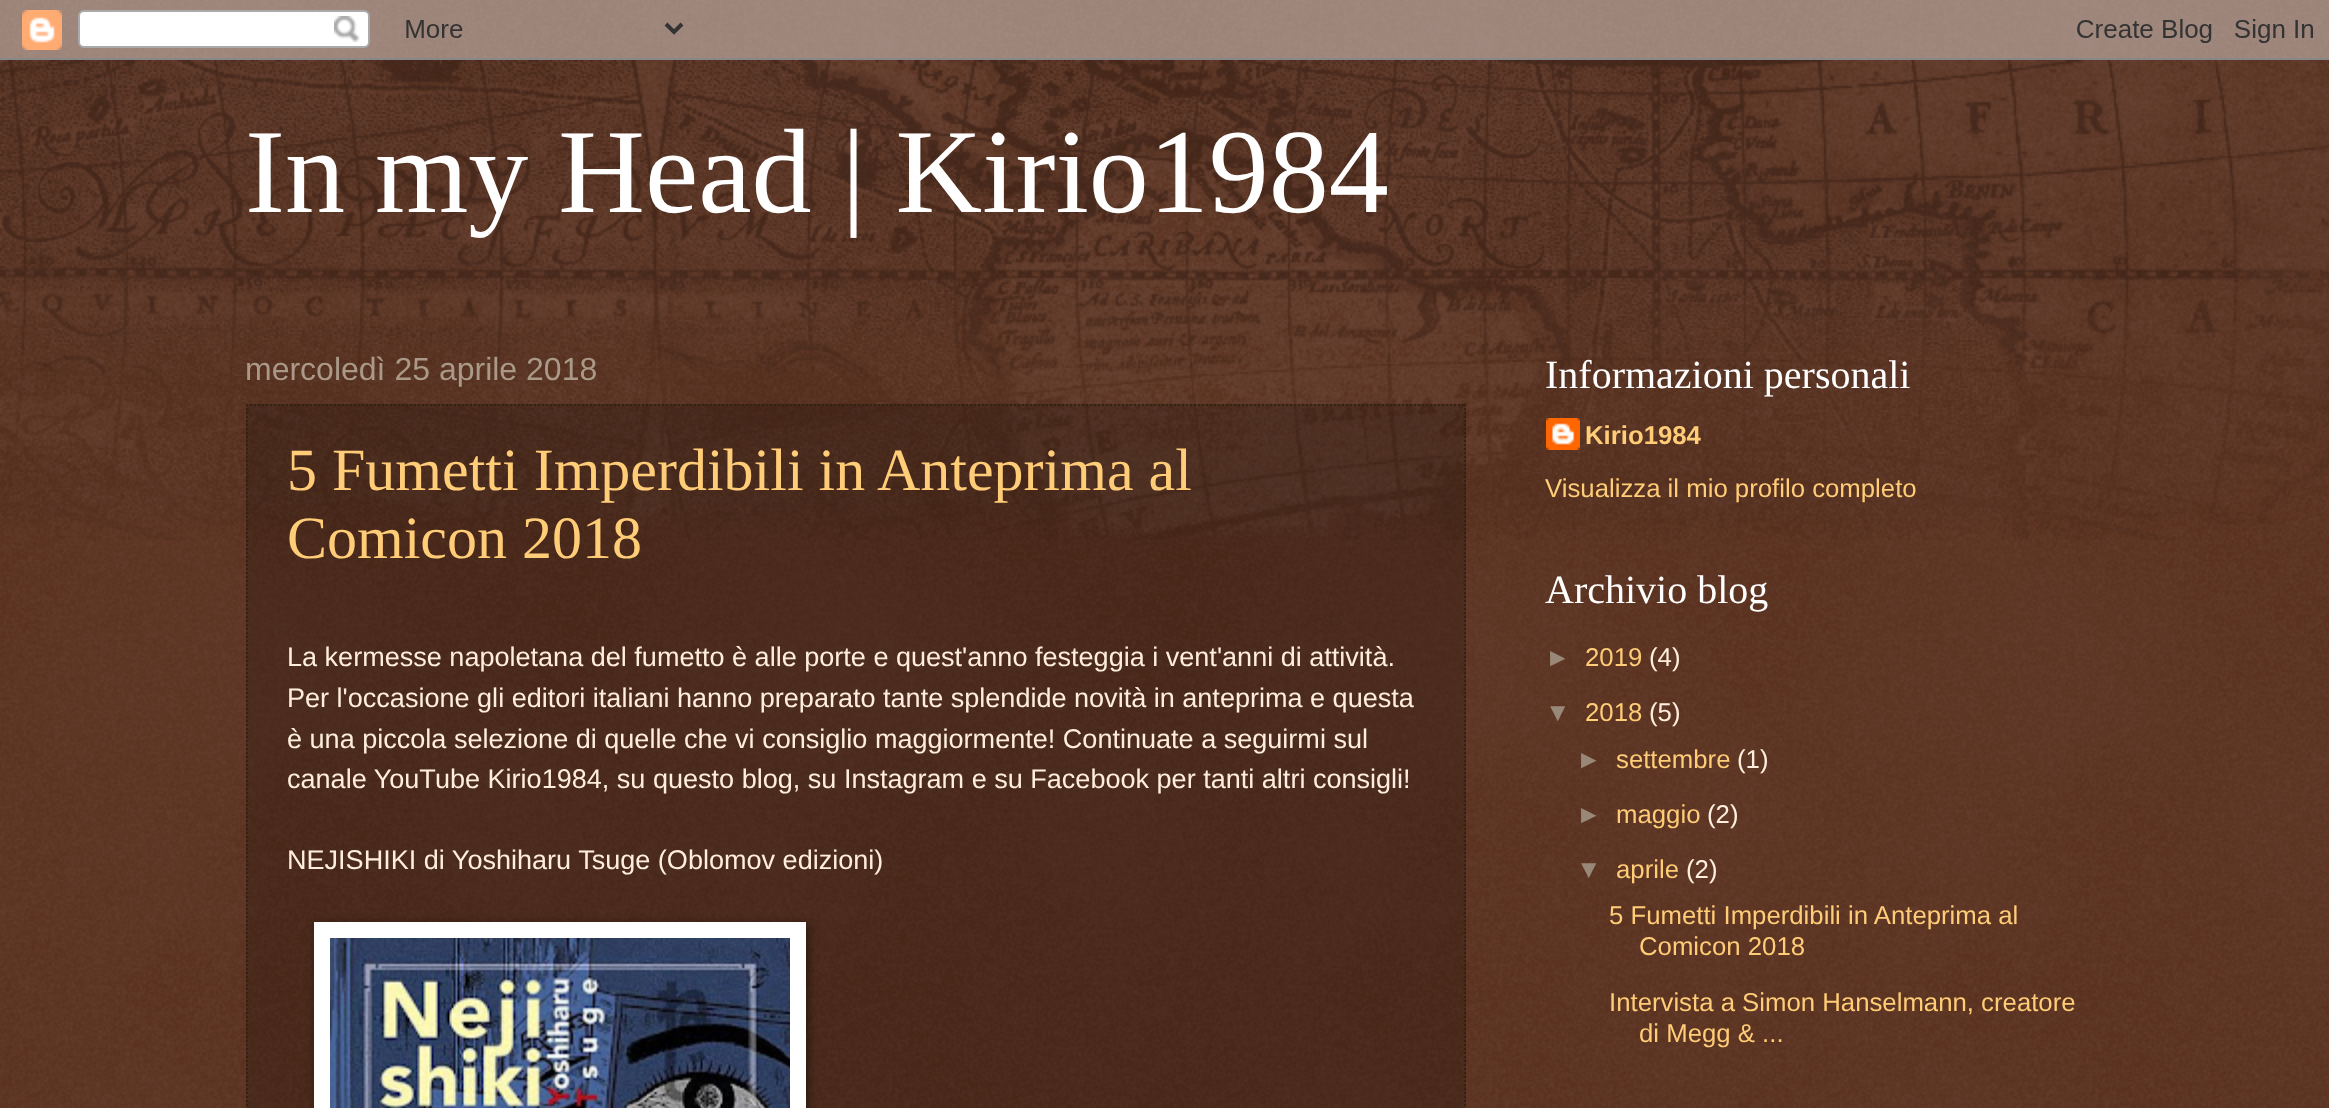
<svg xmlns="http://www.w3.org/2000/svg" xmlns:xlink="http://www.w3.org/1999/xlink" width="2329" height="1108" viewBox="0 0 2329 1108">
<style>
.cls-1{font:120px Liberation Serif;fill:#ffffff}
.cls-2{font:32px Liberation Sans;fill:#aa9988}
.cls-3{font:60px Liberation Serif;fill:#ffcc77}
.cls-4{font:27.05px Liberation Sans;fill:#ffeedd}
.cls-5{font:40px Liberation Serif;fill:#ffffff}
.cls-6{font:bold 25.75px Liberation Sans;fill:#ffcc77}
.cls-7{font:25.75px Liberation Sans;fill:#ffcc77}
.cls-8{font:25.75px Liberation Sans;fill:#998877}
.cls-9{font:25.75px Liberation Sans;fill:#ffeedd}
</style>
<rect width="100%" height="100%" fill="#441500"/>
<image xlink:href="image0.png" x="0" y="0" width="2329" height="1108"/>
<image xlink:href="image1.png" x="0" y="0" width="2329" height="60"/>
<image xlink:href="image2.png" x="0" y="60" width="2329" height="480"/>
<rect fill="#000000" fill-opacity="0.2" x="246" y="404" width="1220" height="704"/>
<path fill="none" stroke="#332211" stroke-width="2" stroke-dasharray="2 2" d="M246 405H1466"/>
<path fill="none" stroke="#332211" stroke-width="2" stroke-dasharray="2 2" d="M1465 404V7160"/>
<path fill="none" stroke="#332211" stroke-width="2" stroke-dasharray="2 2" d="M247 404V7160"/>
<rect fill="#000000" fill-opacity="0.5" filter="blur(5px)" x="316" y="924" width="492" height="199"/>
<rect fill="#ffffff" x="314" y="922" width="492" height="186"/>
<image xlink:href="image3.png" x="330" y="938" width="460" height="170"/>
<image xlink:href="image4.png" x="1546" y="418" width="34" height="32"/>
<text class="cls-1" x="245" y="212">In my Head | Kirio1984</text>
<text class="cls-2" x="245" y="380">mercoledì 25 aprile 2018</text>
<text class="cls-3"><tspan x="287" y="490">5 Fumetti Imperdibili in Anteprima al</tspan><tspan x="287" y="558">Comicon 2018</tspan></text>
<text class="cls-4"><tspan x="287" y="666">La kermesse napoletana del fumetto è alle porte e quest'anno festeggia i vent'anni di attività.</tspan><tspan x="287" y="707">Per l'occasione gli editori italiani hanno preparato tante splendide novità in anteprima e questa</tspan><tspan x="287" y="748">è una piccola selezione di quelle che vi consiglio maggiormente! Continuate a seguirmi sul</tspan><tspan x="287" y="788">canale YouTube Kirio1984, su questo blog, su Instagram e su Facebook per tanti altri consigli!</tspan></text>
<text class="cls-4" x="287" y="869">NEJISHIKI di Yoshiharu Tsuge (Oblomov edizioni)</text>
<text class="cls-5" x="1545" y="388">Informazioni personali</text>
<text class="cls-6" x="1585" y="444">Kirio1984</text>
<text class="cls-7" x="1545" y="497">Visualizza il mio profilo completo</text>
<text class="cls-5" x="1545" y="603">Archivio blog</text>
<text class="cls-8" x="1545" y="666">►</text>
<text class="cls-7" x="1585" y="666">2019</text>
<text class="cls-9" x="1649" y="666">(4)</text>
<text class="cls-8" x="1545" y="721">▼</text>
<text class="cls-7" x="1585" y="721">2018</text>
<text class="cls-9" x="1649" y="721">(5)</text>
<text class="cls-8" x="1576" y="768">►</text>
<text class="cls-7" x="1616" y="768">settembre</text>
<text class="cls-9" x="1737" y="768">(1)</text>
<text class="cls-8" x="1576" y="823">►</text>
<text class="cls-7" x="1616" y="823">maggio</text>
<text class="cls-9" x="1707" y="823">(2)</text>
<text class="cls-8" x="1576" y="878">▼</text>
<text class="cls-7" x="1616" y="878">aprile</text>
<text class="cls-9" x="1686" y="878">(2)</text>
<text class="cls-7" x="1609" y="924">5 Fumetti Imperdibili in Anteprima al</text>
<text class="cls-7" x="1639" y="955">Comicon 2018</text>
<text class="cls-7" x="1609" y="1011">Intervista a Simon Hanselmann, creatore</text>
<text class="cls-7" x="1639" y="1042">di Megg &amp; ...</text>
</svg>
